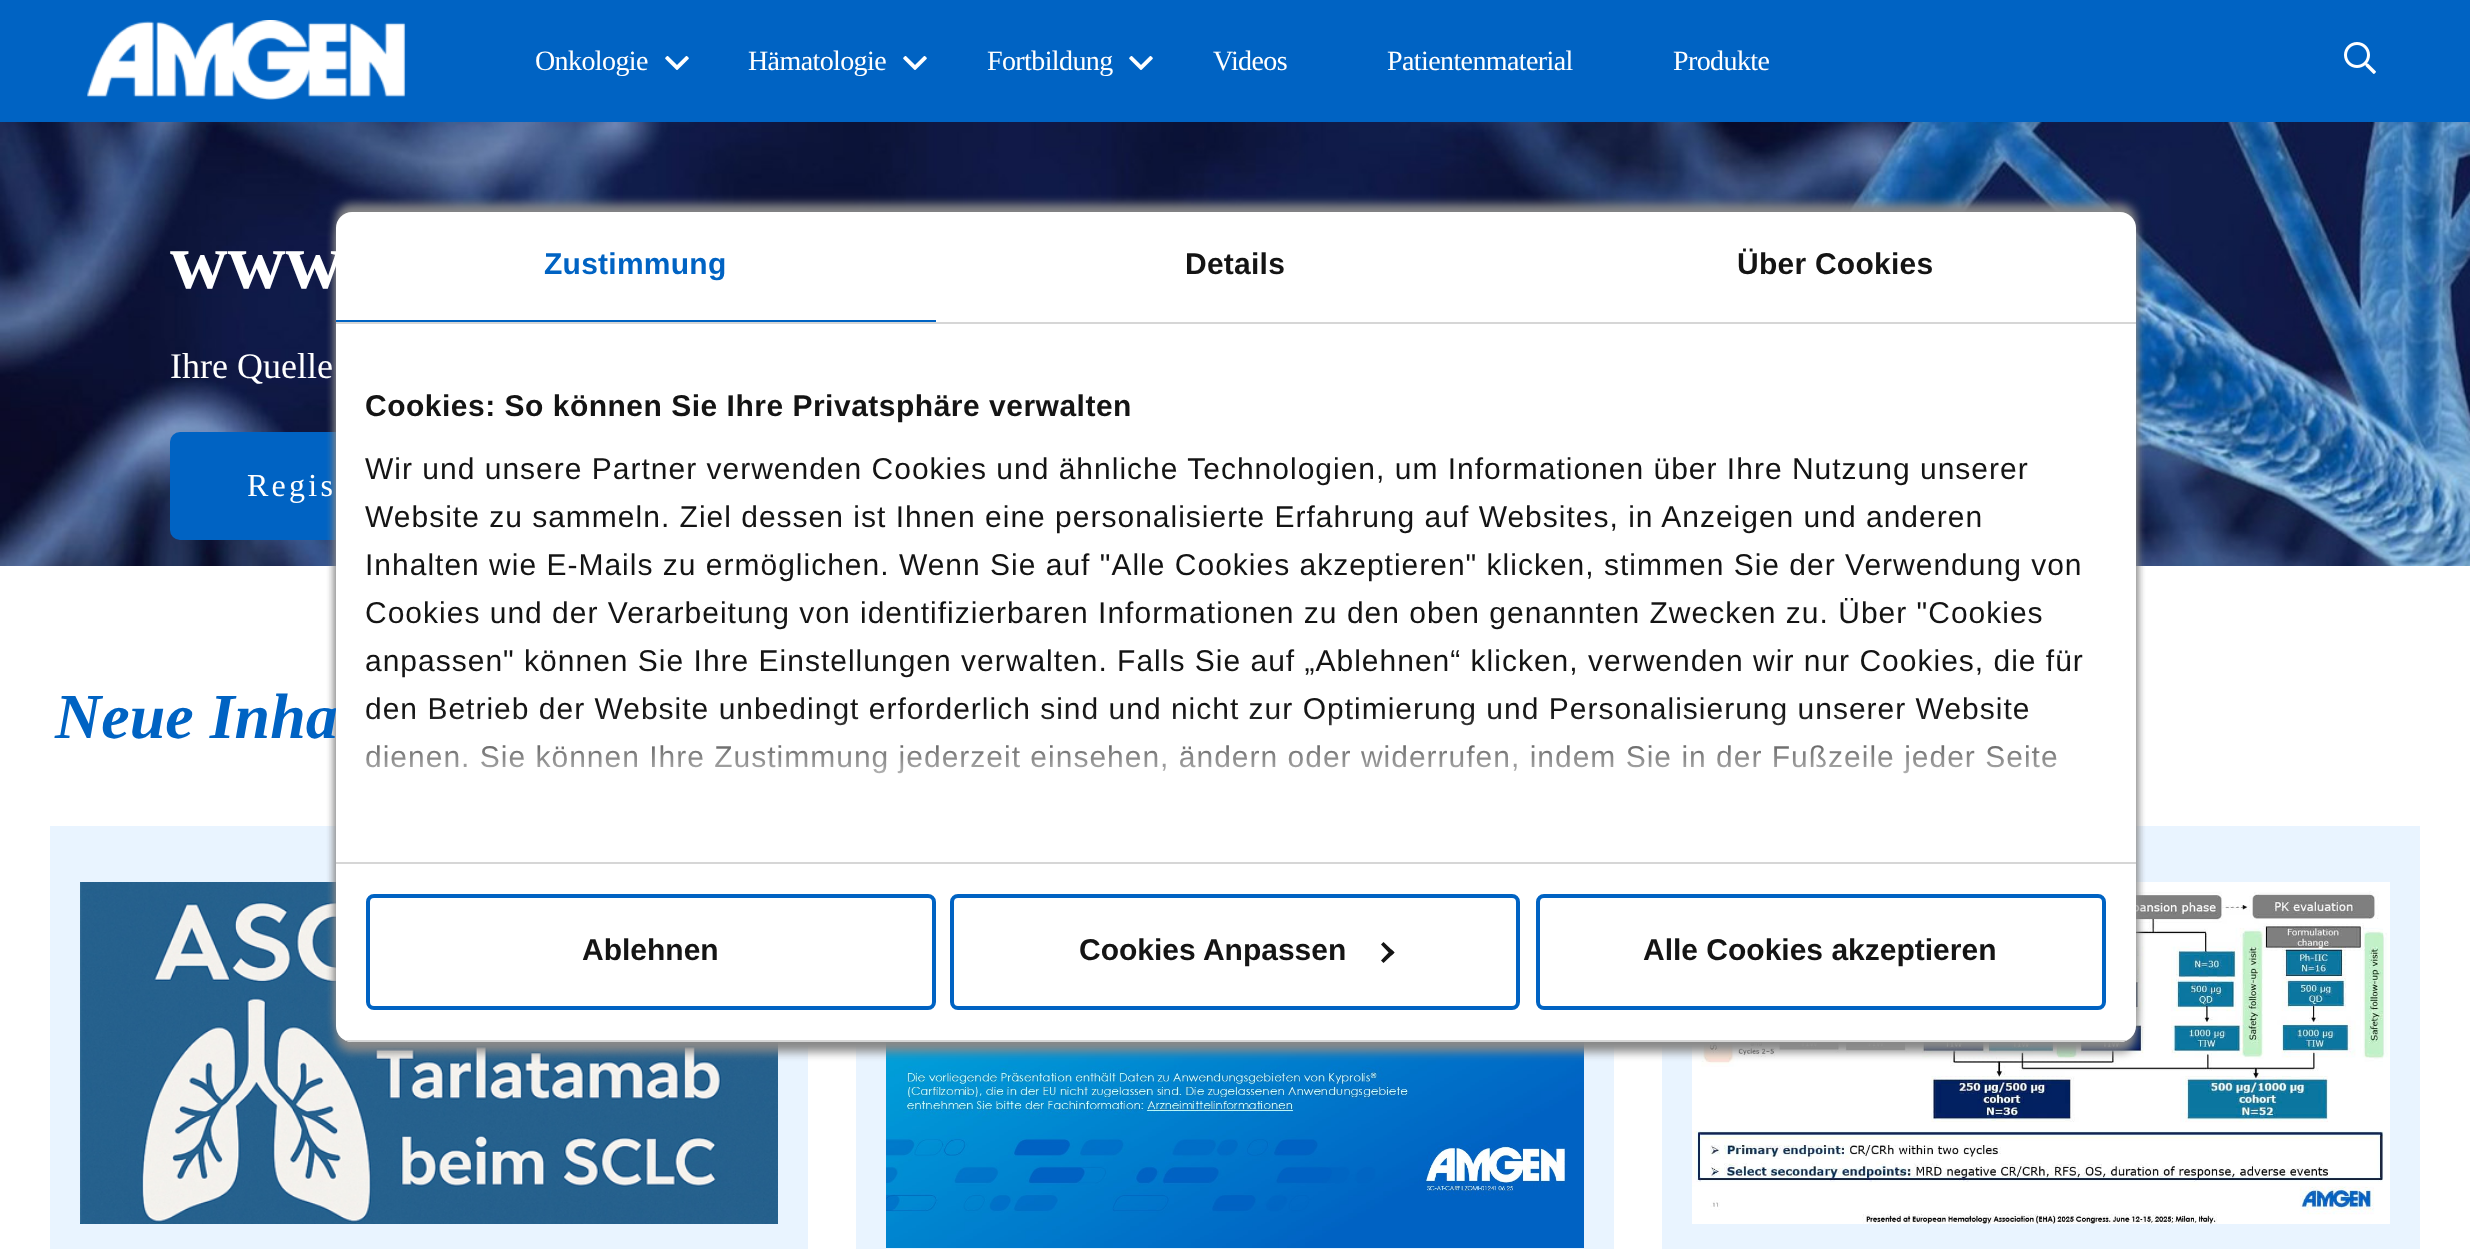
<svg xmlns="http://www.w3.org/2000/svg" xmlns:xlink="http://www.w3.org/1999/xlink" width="2470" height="1249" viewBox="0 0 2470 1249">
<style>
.cls-1{font:28px Liberation Serif;letter-spacing:-0.6px;fill:#ffffff}
.cls-2{font:bold 80px Liberation Serif;fill:#ffffff}
.cls-3{font:36px Liberation Serif;fill:#ffffff}
.cls-4{font:32px Liberation Serif;letter-spacing:3.25px;fill:#ffffff}
.cls-5{font:italic bold 64px Liberation Serif;fill:#0063c3}
.cls-6{font:30px Liberation Sans;letter-spacing:1px;fill:#141414}
.cls-7{font:bold 30px Liberation Sans;fill:#141414}
.cls-8{font:bold 30px Liberation Sans;letter-spacing:0.5px;fill:#141414}
.cls-9{font:bold 30px Liberation Sans;letter-spacing:0.25px;fill:#141414}
.cls-10{font:bold 30px Liberation Sans;letter-spacing:0.25px;fill:#0063c3}
</style>
<defs>
<linearGradient id="g1" gradientUnits="userSpaceOnUse" x1="1223" y1="861" x2="1223" y2="711"><stop offset="0" stop-color="#ffffff"/><stop offset="0.5" stop-color="#ffffff" stop-opacity="0.8"/><stop offset="1" stop-color="#ffffff" stop-opacity="0"/></linearGradient>
<clipPath id="clip1"><rect x="336" y="212" width="1800" height="830" rx="16"/></clipPath>
</defs>
<rect width="100%" height="100%" fill="#ffffff"/>
<rect fill="#0063c3" x="0" y="0" width="2470" height="122"/>
<image xlink:href="image0.png" x="87" y="20" width="319" height="80"/>
<image xlink:href="image1.png" x="665" y="56" width="24" height="14"/>
<image xlink:href="image1.png" x="903" y="56" width="24" height="14"/>
<image xlink:href="image1.png" x="1129" y="56" width="24" height="14"/>
<image xlink:href="image2.png" x="2344" y="42" width="32" height="32"/>
<image xlink:href="image3.png" x="0" y="122" width="2470" height="444"/>
<rect fill="#0063c3" x="170" y="432" width="636" height="108" rx="10"/>
<rect fill="#e9f4ff" x="50" y="826" width="758" height="423"/>
<image xlink:href="image4.png" x="80" y="882" width="698" height="342"/>
<rect fill="#e9f4ff" x="856" y="1042" width="758" height="207"/>
<image xlink:href="image5.png" x="886" y="1042" width="698" height="206"/>
<rect fill="#e9f4ff" x="1662" y="826" width="758" height="423"/>
<image xlink:href="image6.png" x="1692" y="882" width="698" height="342"/>
<rect fill="#888888" filter="blur(5px)" x="336" y="204" width="1800" height="830" rx="16"/>
<rect fill="#888888" filter="blur(5px)" x="336" y="222" width="1800" height="830" rx="16"/>
<text class="cls-1" x="535" y="70">Onkologie</text>
<text class="cls-1" x="748" y="70">Hämatologie</text>
<text class="cls-1" x="987" y="70">Fortbildung</text>
<text class="cls-1" x="1213" y="70">Videos</text>
<text class="cls-1" x="1387" y="70">Patientenmaterial</text>
<text class="cls-1" x="1673" y="70">Produkte</text>
<text class="cls-2" x="170" y="288">www</text>
<text class="cls-3" x="170" y="378">Ihre Quelle</text>
<text class="cls-4" x="247" y="496">Regis</text>
<text class="cls-5" x="55" y="738">Neue Inha</text>
<rect fill="#ffffff" x="336" y="212" width="1800" height="830" rx="16"/>
<text class="cls-6" x="365" y="767">dienen. Sie können Ihre Zustimmung jederzeit einsehen, ändern oder widerrufen, indem Sie in der Fußzeile jeder Seite</text>
<text class="cls-6" x="365" y="719">den Betrieb der Website unbedingt erforderlich sind und nicht zur Optimierung und Personalisierung unserer Website</text>
<rect fill="url(#g1)" x="366" y="713" width="1691" height="61"/>
<rect fill="none" stroke="#0063c3" stroke-width="4" x="952" y="896" width="566" height="112" rx="6"/>
<path fill="#141414" d="M1383.5 942L1394.5 952.5L1391.5 955.5L1381 944.5Z"/>
<path fill="#141414" d="M1391.5 949.5L1394.5 952.5L1383.5 963L1381 960.5Z"/>
<rect fill="none" stroke="#0063c3" stroke-width="4" x="1538" y="896" width="566" height="112" rx="6"/>
<text class="cls-7" x="1643" y="960">Alle Cookies akzeptieren</text>
<text class="cls-7" x="1079" y="960">Cookies Anpassen</text>
<rect fill="none" stroke="#0063c3" stroke-width="4" x="368" y="896" width="566" height="112" rx="6"/>
<text class="cls-7" x="582" y="960">Ablehnen</text>
<g clip-path="url(#clip1)">
<rect fill="#d6d6d6" x="336" y="1040" width="1800" height="2"/>
</g>
<text class="cls-6" x="365" y="671">anpassen" können Sie Ihre Einstellungen verwalten. Falls Sie auf „Ablehnen“ klicken, verwenden wir nur Cookies, die für</text>
<text class="cls-6" x="365" y="623">Cookies und der Verarbeitung von identifizierbaren Informationen zu den oben genannten Zwecken zu. Über "Cookies</text>
<text class="cls-6" x="365" y="575">Inhalten wie E-Mails zu ermöglichen. Wenn Sie auf "Alle Cookies akzeptieren" klicken, stimmen Sie der Verwendung von</text>
<text class="cls-6" x="365" y="527">Website zu sammeln. Ziel dessen ist Ihnen eine personalisierte Erfahrung auf Websites, in Anzeigen und anderen</text>
<text class="cls-6" x="365" y="479">Wir und unsere Partner verwenden Cookies und ähnliche Technologien, um Informationen über Ihre Nutzung unserer</text>
<text class="cls-8" x="365" y="416">Cookies: So können Sie Ihre Privatsphäre verwalten</text>
<rect fill="#d6d6d6" x="336" y="862" width="1800" height="2"/>
<text class="cls-9" x="1737" y="274">Über Cookies</text>
<text class="cls-9" x="1185" y="274">Details</text>
<text class="cls-10" x="544" y="274">Zustimmung</text>
<rect fill="#0063c3" x="336" y="320" width="600" height="2"/>
<rect fill="#d6d6d6" x="336" y="322" width="1800" height="2"/>
</svg>
